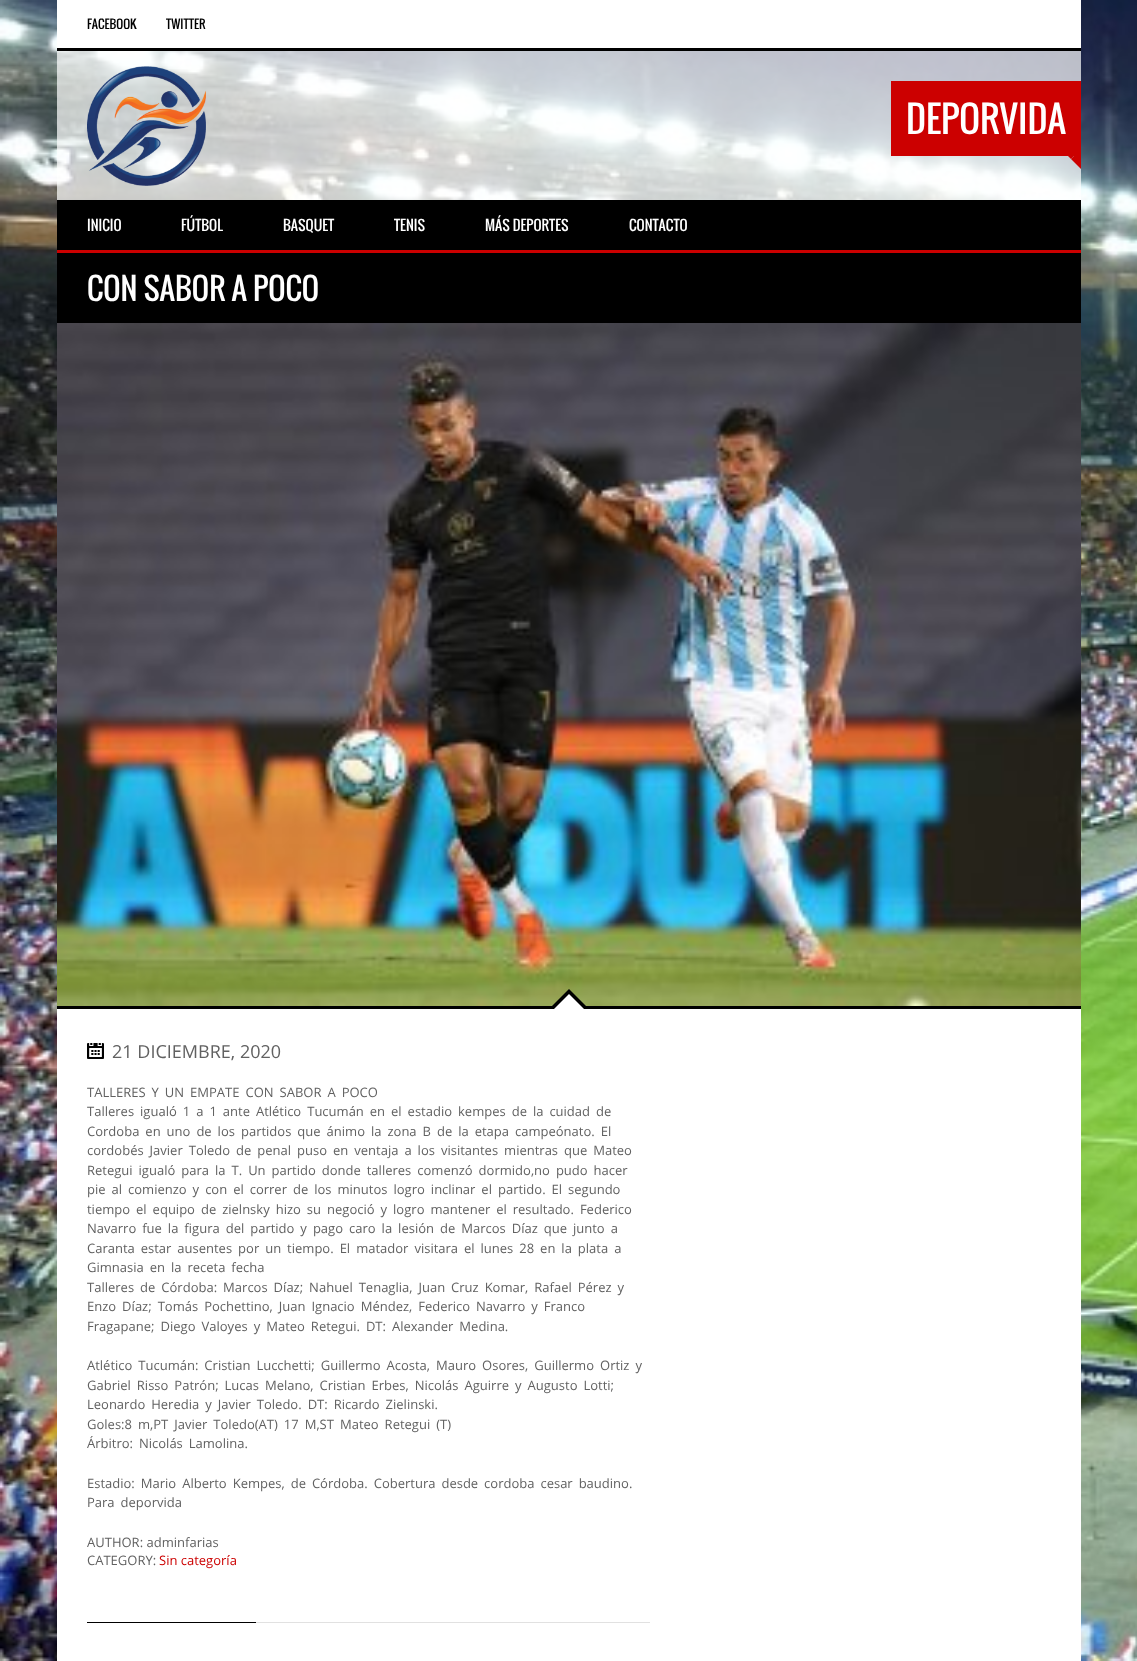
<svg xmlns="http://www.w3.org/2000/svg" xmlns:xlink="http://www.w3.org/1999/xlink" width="1137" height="1661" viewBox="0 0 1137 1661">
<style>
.cls-1{font:12px Oswald;fill:#000000}
.cls-2{font:36px Oswald;fill:#ffffff}
.cls-3{font:14px Oswald;fill:#ffffff}
.cls-4{font:30px Oswald;fill:#ffffff}
.cls-5{font:18px Open Sans;fill:#616161}
.cls-6{font:13px Open Sans;fill:#616161}
.cls-7{font:13px Open Sans;fill:#cc0000}
</style>
<rect width="100%" height="100%" fill="#ffffff"/>
<image xlink:href="image0.png" x="0" y="0" width="1137" height="1661"/>
<rect fill="#ffffff" x="57" y="0" width="1024" height="48"/>
<rect fill="#000000" x="57" y="48" width="1024" height="3"/>
<rect fill="#ffffff" fill-opacity="0.7" x="57" y="51" width="1024" height="149"/>
<image xlink:href="image1.png" x="87" y="66" width="119" height="120"/>
<rect fill="#cc0000" x="891" y="81" width="190" height="75"/>
<path fill="#cc0000" d="M1061 149H1081L1071 159Z"/>
<path fill="#cc0000" d="M1081 149V169L1071 159Z"/>
<rect fill="#000000" x="57" y="200" width="1024" height="50"/>
<rect fill="#cc0000" x="57" y="250" width="1024" height="3"/>
<rect fill="#000000" x="57" y="253" width="1024" height="70"/>
<image xlink:href="image2.png" x="57" y="323" width="1024" height="683"/>
<rect fill="#ffffff" x="57" y="1009" width="1024" height="652"/>
<rect fill="#000000" x="57" y="1006" width="1024" height="3"/>
<path fill="#000000" d="M589 1009H549L569 989Z"/>
<path fill="#ffffff" d="M584 1009H554L569 994Z"/>
<image xlink:href="image3.png" x="87" y="1043" width="17" height="16"/>
<rect fill="#000000" x="87" y="1622" width="169" height="1"/>
<rect fill="#e1e1e1" x="256" y="1622" width="394" height="1"/>
<text class="cls-1" x="87" y="29">FACEBOOK</text>
<text class="cls-1" x="166" y="29">TWITTER</text>
<text class="cls-2" x="906" y="134">DEPORVIDA</text>
<text class="cls-3" x="87" y="231">INICIO</text>
<text class="cls-3" x="181" y="231">FÚTBOL</text>
<text class="cls-3" x="283" y="231">BASQUET</text>
<text class="cls-3" x="394" y="231">TENIS</text>
<text class="cls-3" x="485" y="231">MÁS DEPORTES</text>
<text class="cls-3" x="629" y="231">CONTACTO</text>
<text class="cls-4" x="87" y="301">CON SABOR A POCO</text>
<text class="cls-5" x="112" y="1058">21 DICIEMBRE, 2020</text>
<text class="cls-6"><tspan x="87" y="1097" word-spacing="2.6">TALLERES Y UN EMPATE CON SABOR A POCO</tspan><tspan x="87" y="1116" word-spacing="2.6">Talleres igualó 1 a 1 ante Atlético Tucumán en el estadio kempes de la cuidad de</tspan><tspan x="87" y="1136" word-spacing="2.6">Cordoba en uno de los partidos que ánimo la zona B de la etapa campeónato. El</tspan><tspan x="87" y="1155" word-spacing="2.6">cordobés Javier Toledo de penal puso en ventaja a los visitantes mientras que Mateo</tspan><tspan x="87" y="1175" word-spacing="2.6">Retegui igualó para la T. Un partido donde talleres comenzó dormido,no pudo hacer</tspan><tspan x="87" y="1194" word-spacing="2.6">pie al comienzo y con el correr de los minutos logro inclinar el partido. El segundo</tspan><tspan x="87" y="1214" word-spacing="2.6">tiempo el equipo de zielnsky hizo su negoció y logro mantener el resultado. Federico</tspan><tspan x="87" y="1233" word-spacing="2.6">Navarro fue la figura del partido y pago caro la lesión de Marcos Díaz que junto a</tspan><tspan x="87" y="1253" word-spacing="2.6">Caranta estar ausentes por un tiempo. El matador visitara el lunes 28 en la plata a</tspan><tspan x="87" y="1272" word-spacing="2.6">Gimnasia en la receta fecha</tspan><tspan x="87" y="1292" word-spacing="2.6">Talleres de Córdoba: Marcos Díaz; Nahuel Tenaglia, Juan Cruz Komar, Rafael Pérez y</tspan><tspan x="87" y="1311" word-spacing="2.6">Enzo Díaz; Tomás Pochettino, Juan Ignacio Méndez, Federico Navarro y Franco</tspan><tspan x="87" y="1331" word-spacing="2.6">Fragapane; Diego Valoyes y Mateo Retegui. DT: Alexander Medina.</tspan></text>
<text class="cls-6"><tspan x="87" y="1370" word-spacing="2.6">Atlético Tucumán: Cristian Lucchetti; Guillermo Acosta, Mauro Osores, Guillermo Ortiz y</tspan><tspan x="87" y="1390" word-spacing="2.6">Gabriel Risso Patrón; Lucas Melano, Cristian Erbes, Nicolás Aguirre y Augusto Lotti;</tspan><tspan x="87" y="1409" word-spacing="2.6">Leonardo Heredia y Javier Toledo. DT: Ricardo Zielinski.</tspan><tspan x="87" y="1429" word-spacing="2.6">Goles:8 m,PT Javier Toledo(AT) 17 M,ST Mateo Retegui (T)</tspan><tspan x="87" y="1448" word-spacing="2.6">Árbitro: Nicolás Lamolina.</tspan></text>
<text class="cls-6"><tspan x="87" y="1488" word-spacing="2.6">Estadio: Mario Alberto Kempes, de Córdoba. Cobertura desde cordoba cesar baudino.</tspan><tspan x="87" y="1507" word-spacing="2.6">Para deporvida</tspan></text>
<text class="cls-6"><tspan x="87" y="1547">AUTHOR: adminfarias</tspan><tspan x="87" y="1565">CATEGORY:</tspan></text>
<text class="cls-7" x="159" y="1565">Sin categoría</text>
</svg>
